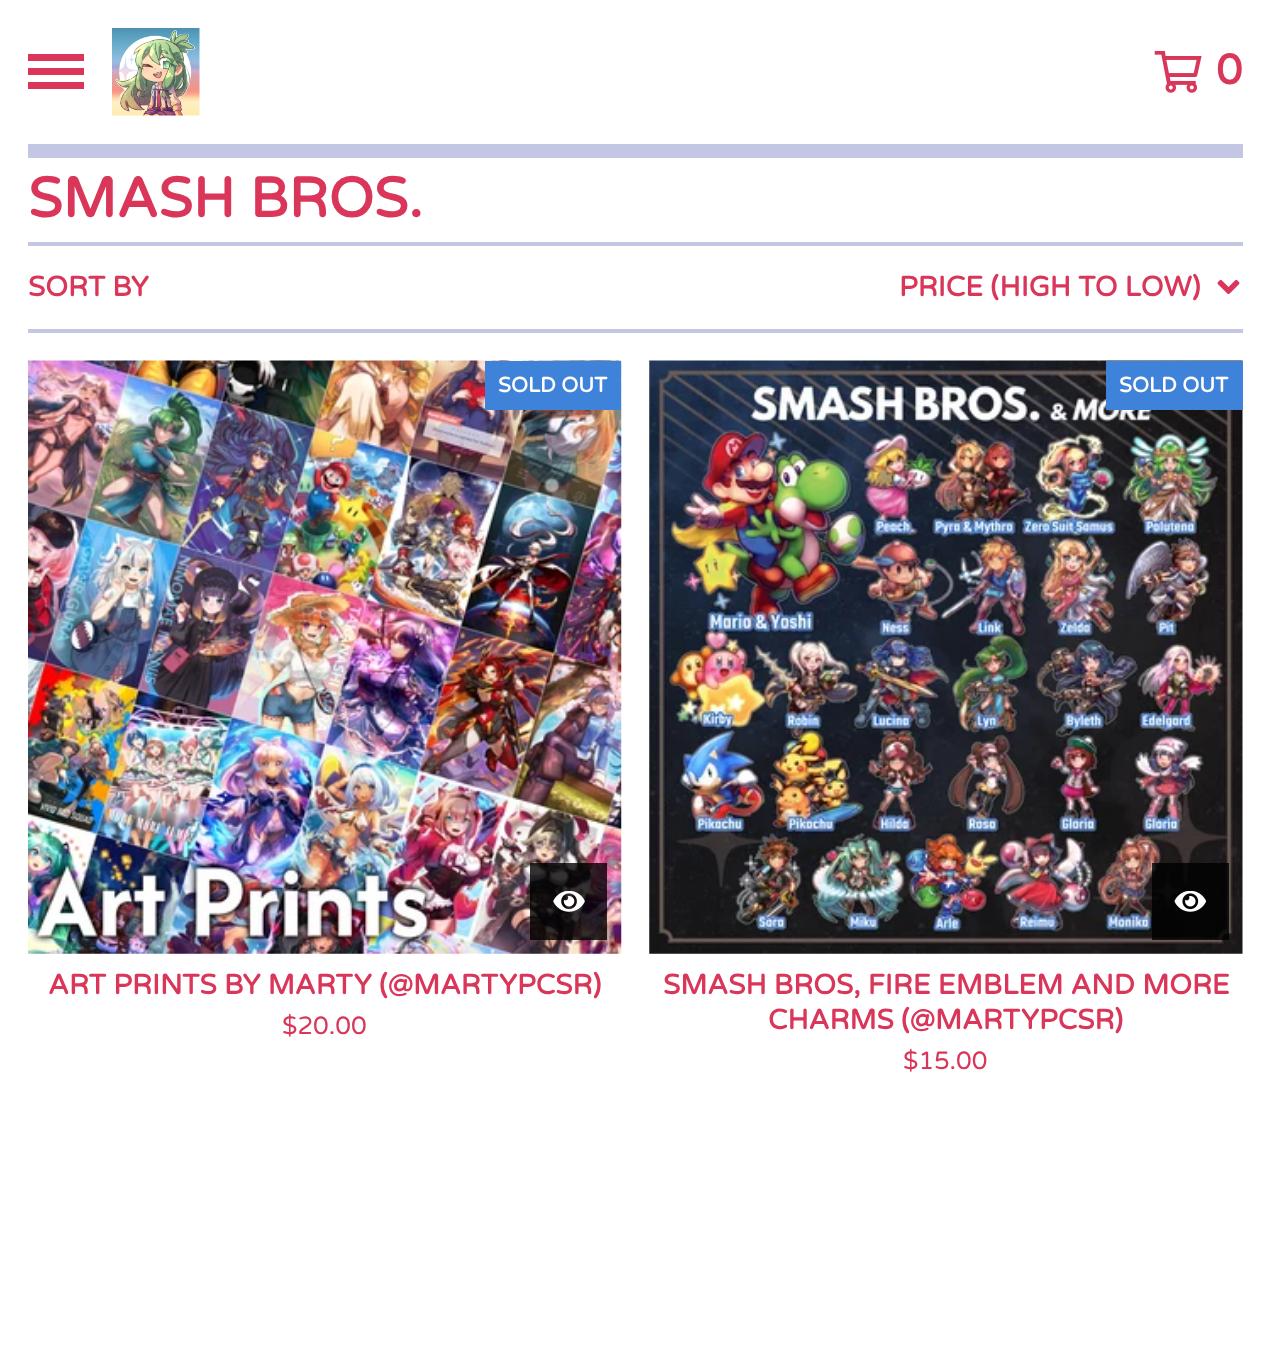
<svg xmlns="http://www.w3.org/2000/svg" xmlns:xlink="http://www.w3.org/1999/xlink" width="1269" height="1369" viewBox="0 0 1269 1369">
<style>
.cls-1{font:bold 42px Varela Round;fill:#d9365a}
.cls-2{font:bold 56px Varela Round;fill:#d9365a}
.cls-3{font:bold 28px Varela Round;fill:#d9365a}
.cls-4{font:bold 21px Varela Round;fill:#ffffff}
.cls-5{font:25px Varela Round;fill:#d9365a}
</style>
<rect width="100%" height="100%" fill="#ffffff"/>
<rect fill="#c3c7e3" x="28" y="144" width="1215" height="14"/>
<rect fill="#d9365a" x="28" y="68" width="56" height="7"/>
<rect fill="#d9365a" x="28" y="54" width="56" height="7"/>
<rect fill="#d9365a" x="28" y="82" width="56" height="7"/>
<image xlink:href="image0.png" x="112" y="28" width="88" height="88"/>
<image xlink:href="image1.png" x="1154" y="51" width="48" height="42"/>
<rect fill="#c3c7e3" x="28" y="329" width="1215" height="4"/>
<rect fill="#c3c7e3" x="28" y="242" width="1215" height="4"/>
<image xlink:href="image2.png" x="1217" y="280" width="23" height="14"/>
<image xlink:href="image3.png" x="28" y="360" width="594" height="594"/>
<rect fill="#3f82d9" x="485" y="361" width="136" height="49"/>
<rect fill="#000000" fill-opacity="0.8" x="530" y="863" width="77" height="77"/>
<image xlink:href="image4.png" x="553" y="891" width="32" height="21"/>
<image xlink:href="image5.png" x="649" y="360" width="594" height="594"/>
<rect fill="#3f82d9" x="1106" y="361" width="137" height="49"/>
<rect fill="#000000" fill-opacity="0.8" x="1152" y="863" width="77" height="77"/>
<image xlink:href="image6.png" x="1174" y="891" width="32" height="21"/>
<text class="cls-1" x="1216" y="84">0</text>
<text class="cls-2" x="28" y="217">SMASH BROS.</text>
<text class="cls-3" x="28" y="296">SORT BY</text>
<text class="cls-3" x="899" y="296">PRICE (HIGH TO LOW)</text>
<text class="cls-4" x="498" y="392">SOLD OUT</text>
<text class="cls-3" x="48" y="994">ART PRINTS BY MARTY (@MARTYPCSR)</text>
<text class="cls-5" x="282" y="1034">$20.00</text>
<text class="cls-4" x="1119" y="392">SOLD OUT</text>
<text class="cls-3" x="663" y="994">SMASH BROS, FIRE EMBLEM AND MORE</text>
<text class="cls-3" x="768" y="1029">CHARMS (@MARTYPCSR)</text>
<text class="cls-5" x="903" y="1069">$15.00</text>
</svg>
